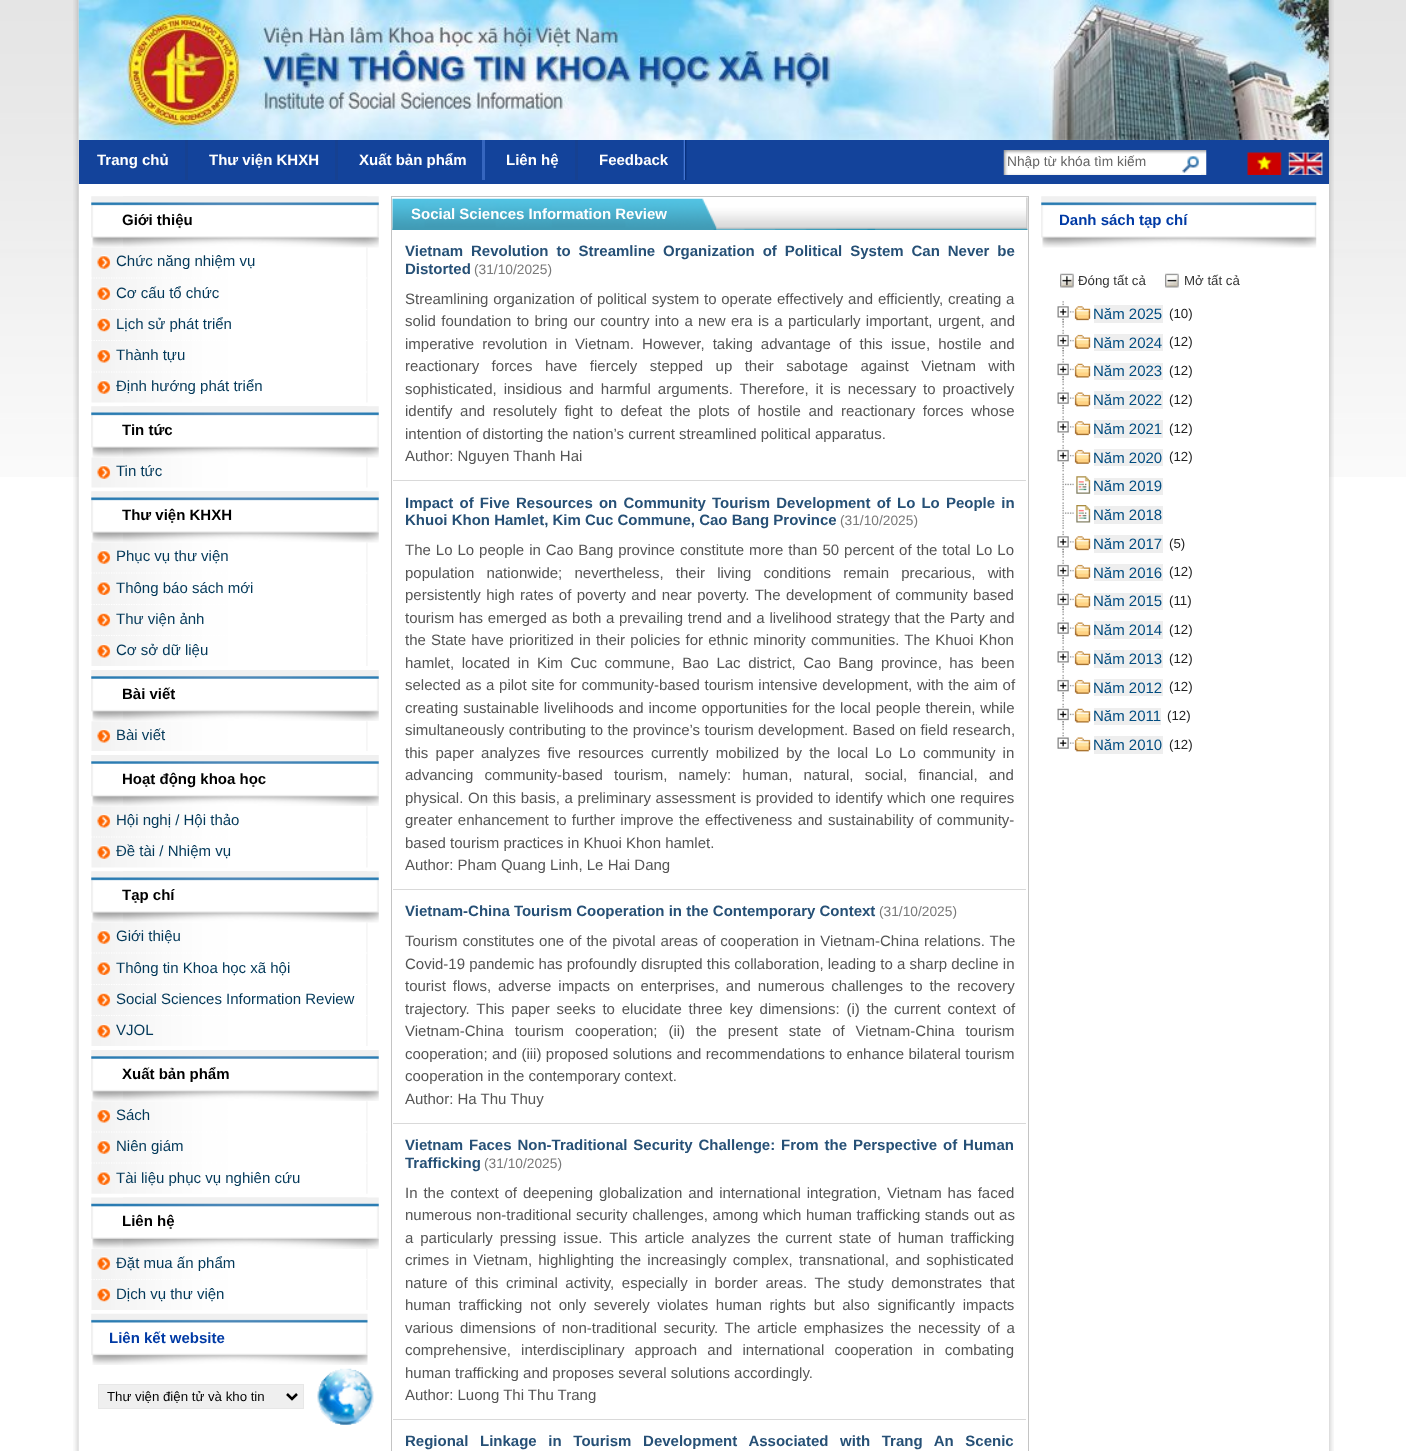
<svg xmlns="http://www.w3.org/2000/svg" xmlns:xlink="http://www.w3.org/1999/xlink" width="1406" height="1451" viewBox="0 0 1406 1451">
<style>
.cls-1{font:bold 15px Liberation Sans;fill:#ffffff}
.cls-2{font:13.75px Liberation Sans;fill:#666666}
.cls-3{font:bold 15px Liberation Sans;fill:#000000}
.cls-4{font:15px Liberation Sans;fill:#023859}
.cls-5{font:bold 15px Liberation Sans;fill:#003aa5}
.cls-6{font:13.25px Liberation Sans;fill:#000000}
.cls-7{font:bold 15px Liberation Sans;fill:#265076}
.cls-8{font:13.75px Liberation Sans;fill:#797979}
.cls-9{font:15px Liberation Sans;fill:#555555}
.cls-10{font:13.25px Liberation Sans;fill:#333333}
.cls-11{font:15px Liberation Sans;fill:#004c80}
.cls-12{font:13.25px Liberation Sans;fill:#222222}
</style>
<rect width="100%" height="100%" fill="#ffffff"/>
<image xlink:href="image0.png" x="0" y="0" width="1406" height="477"/>
<image xlink:href="image1.png" x="73" y="0" width="1261" height="1451"/>
<image xlink:href="image2.png" x="78" y="0" width="1251" height="140"/>
<rect fill="#13439b" x="79" y="140" width="1250" height="44"/>
<rect fill="#164191" x="185" y="140" width="3" height="40"/>
<rect fill="#164191" x="335" y="140" width="3" height="40"/>
<rect fill="#3666bf" x="482" y="140" width="3" height="40"/>
<rect fill="#164191" x="575" y="140" width="3" height="40"/>
<image xlink:href="image3.png" x="683" y="140" width="4" height="40"/>
<image xlink:href="image4.png" x="1003" y="150" width="204" height="25"/>
<image xlink:href="image5.png" x="1180" y="156" width="21" height="19"/>
<image xlink:href="image6.png" x="1247" y="152" width="35" height="23"/>
<image xlink:href="image7.png" x="1288" y="152" width="35" height="23"/>
<rect fill="#ffffff" x="1328" y="184" width="1" height="1267"/>
<image xlink:href="image8.png" x="91" y="196" width="277" height="52"/>
<image xlink:href="image9.png" x="123" y="196" width="256" height="52"/>
<image xlink:href="image10.png" x="91" y="247" width="277" height="156"/>
<path fill="none" stroke="#ffffff" stroke-width="1.2" stroke-dasharray="1.25 1.25" d="M91 278H379"/>
<image xlink:href="image11.png" x="97" y="255" width="14" height="14"/>
<path fill="none" stroke="#ffffff" stroke-width="1.2" stroke-dasharray="1.25 1.25" d="M91 309.5H379"/>
<image xlink:href="image12.png" x="97" y="286" width="14" height="14"/>
<path fill="none" stroke="#ffffff" stroke-width="1.2" stroke-dasharray="1.25 1.25" d="M91 340.5H379"/>
<image xlink:href="image13.png" x="97" y="317" width="14" height="15"/>
<path fill="none" stroke="#ffffff" stroke-width="1.2" stroke-dasharray="1.25 1.25" d="M91 372H379"/>
<image xlink:href="image14.png" x="97" y="349" width="14" height="14"/>
<image xlink:href="image11.png" x="97" y="380" width="14" height="14"/>
<image xlink:href="image8.png" x="91" y="406" width="277" height="52"/>
<image xlink:href="image9.png" x="123" y="406" width="256" height="52"/>
<image xlink:href="image15.png" x="91" y="457" width="277" height="31"/>
<image xlink:href="image11.png" x="97" y="465" width="14" height="14"/>
<image xlink:href="image8.png" x="91" y="491" width="277" height="52"/>
<image xlink:href="image9.png" x="123" y="491" width="256" height="52"/>
<image xlink:href="image16.png" x="91" y="542" width="277" height="124"/>
<path fill="none" stroke="#ffffff" stroke-width="1.2" stroke-dasharray="1.25 1.25" d="M91 573H379"/>
<image xlink:href="image11.png" x="97" y="550" width="14" height="14"/>
<path fill="none" stroke="#ffffff" stroke-width="1.2" stroke-dasharray="1.25 1.25" d="M91 604.5H379"/>
<image xlink:href="image12.png" x="97" y="581" width="14" height="14"/>
<path fill="none" stroke="#ffffff" stroke-width="1.2" stroke-dasharray="1.25 1.25" d="M91 635.5H379"/>
<image xlink:href="image13.png" x="97" y="612" width="14" height="15"/>
<image xlink:href="image14.png" x="97" y="644" width="14" height="14"/>
<image xlink:href="image17.png" x="91" y="670" width="32" height="51"/>
<image xlink:href="image18.png" x="123" y="670" width="256" height="51"/>
<image xlink:href="image19.png" x="91" y="721" width="277" height="30"/>
<image xlink:href="image14.png" x="97" y="729" width="14" height="14"/>
<image xlink:href="image17.png" x="91" y="755" width="32" height="51"/>
<image xlink:href="image18.png" x="123" y="755" width="256" height="51"/>
<image xlink:href="image20.png" x="91" y="806" width="277" height="62"/>
<path fill="none" stroke="#ffffff" stroke-width="1.2" stroke-dasharray="1.25 1.25" d="M91 837H379"/>
<image xlink:href="image14.png" x="97" y="814" width="14" height="14"/>
<image xlink:href="image11.png" x="97" y="845" width="14" height="14"/>
<image xlink:href="image8.png" x="91" y="871" width="277" height="52"/>
<image xlink:href="image9.png" x="123" y="871" width="256" height="52"/>
<image xlink:href="image21.png" x="91" y="922" width="277" height="124"/>
<path fill="none" stroke="#ffffff" stroke-width="1.2" stroke-dasharray="1.25 1.25" d="M91 953H379"/>
<image xlink:href="image11.png" x="97" y="930" width="14" height="14"/>
<path fill="none" stroke="#ffffff" stroke-width="1.2" stroke-dasharray="1.25 1.25" d="M91 984.5H379"/>
<image xlink:href="image22.png" x="97" y="961" width="14" height="14"/>
<path fill="none" stroke="#ffffff" stroke-width="1.2" stroke-dasharray="1.25 1.25" d="M91 1015.5H379"/>
<image xlink:href="image13.png" x="97" y="992" width="14" height="15"/>
<image xlink:href="image23.png" x="97" y="1024" width="14" height="14"/>
<image xlink:href="image17.png" x="91" y="1050" width="32" height="51"/>
<image xlink:href="image18.png" x="123" y="1050" width="256" height="51"/>
<image xlink:href="image24.png" x="91" y="1101" width="277" height="93"/>
<path fill="none" stroke="#ffffff" stroke-width="1.2" stroke-dasharray="1.25 1.25" d="M91 1132H379"/>
<image xlink:href="image14.png" x="97" y="1109" width="14" height="14"/>
<path fill="none" stroke="#ffffff" stroke-width="1.2" stroke-dasharray="1.25 1.25" d="M91 1163H379"/>
<image xlink:href="image11.png" x="97" y="1140" width="14" height="14"/>
<image xlink:href="image25.png" x="97" y="1171" width="14" height="14"/>
<image xlink:href="image26.png" x="91" y="1197" width="277" height="52"/>
<image xlink:href="image27.png" x="123" y="1197" width="256" height="52"/>
<image xlink:href="image28.png" x="91" y="1249" width="277" height="61"/>
<path fill="none" stroke="#ffffff" stroke-width="1.2" stroke-dasharray="1.25 1.25" d="M91 1279.5H379"/>
<image xlink:href="image22.png" x="97" y="1256" width="14" height="14"/>
<image xlink:href="image13.png" x="97" y="1287" width="14" height="15"/>
<image xlink:href="image29.png" x="91" y="1313" width="277" height="52"/>
<image xlink:href="image30.png" x="317" y="1368" width="57" height="57"/>
<rect fill="#efefef" stroke="#e7e7e7" x="98.5" y="1384.5" width="205" height="24"/>
<path fill="none" stroke="#000000" stroke-width="2.5" d="M287 1394L292 1399L297 1394"/>
<rect fill="none" stroke="#c4c4c4" x="391.5" y="196.5" width="637" height="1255"/>
<image xlink:href="image31.png" x="392" y="197" width="636" height="33"/>
<image xlink:href="image32.png" x="392" y="198" width="325" height="32"/>
<rect fill="#d9d9d9" x="393" y="480" width="633" height="1"/>
<rect fill="#d9d9d9" x="393" y="889" width="633" height="1"/>
<rect fill="#d9d9d9" x="393" y="1123" width="633" height="1"/>
<rect fill="#d9d9d9" x="393" y="1419" width="633" height="1"/>
<image xlink:href="image33.png" x="1041" y="196" width="276" height="52"/>
<image xlink:href="image34.png" x="1060" y="273" width="14" height="15"/>
<image xlink:href="image35.png" x="1165" y="273" width="14" height="15"/>
<image xlink:href="image36.png" x="1062" y="301" width="2" height="27"/>
<image xlink:href="image37.png" x="1057" y="306" width="17" height="17"/>
<image xlink:href="image38.png" x="1073" y="306" width="18" height="15"/>
<rect fill="#eeeeee" x="1094" y="305" width="69" height="18"/>
<image xlink:href="image39.png" x="1062" y="329" width="2" height="28"/>
<image xlink:href="image40.png" x="1057" y="334" width="17" height="18"/>
<image xlink:href="image41.png" x="1073" y="334" width="18" height="15"/>
<rect fill="#eeeeee" x="1094" y="334" width="69" height="17"/>
<image xlink:href="image42.png" x="1062" y="358" width="2" height="28"/>
<image xlink:href="image43.png" x="1057" y="363" width="17" height="18"/>
<image xlink:href="image44.png" x="1073" y="363" width="18" height="15"/>
<rect fill="#eeeeee" x="1094" y="363" width="69" height="17"/>
<image xlink:href="image45.png" x="1062" y="387" width="2" height="27"/>
<image xlink:href="image46.png" x="1057" y="392" width="17" height="17"/>
<image xlink:href="image47.png" x="1073" y="392" width="18" height="15"/>
<rect fill="#eeeeee" x="1094" y="391" width="69" height="18"/>
<image xlink:href="image36.png" x="1062" y="416" width="2" height="27"/>
<image xlink:href="image37.png" x="1057" y="421" width="17" height="17"/>
<image xlink:href="image38.png" x="1073" y="421" width="18" height="15"/>
<rect fill="#eeeeee" x="1094" y="420" width="69" height="18"/>
<image xlink:href="image39.png" x="1062" y="444" width="2" height="28"/>
<image xlink:href="image40.png" x="1057" y="449" width="17" height="18"/>
<image xlink:href="image41.png" x="1073" y="449" width="18" height="15"/>
<rect fill="#eeeeee" x="1094" y="449" width="69" height="17"/>
<image xlink:href="image48.png" x="1062" y="473" width="12" height="28"/>
<image xlink:href="image49.png" x="1073" y="476" width="18" height="18"/>
<rect fill="#eeeeee" x="1094" y="478" width="69" height="17"/>
<image xlink:href="image50.png" x="1062" y="502" width="12" height="27"/>
<image xlink:href="image51.png" x="1073" y="505" width="18" height="18"/>
<rect fill="#eeeeee" x="1094" y="506" width="69" height="18"/>
<image xlink:href="image36.png" x="1062" y="531" width="2" height="27"/>
<image xlink:href="image37.png" x="1057" y="536" width="17" height="17"/>
<image xlink:href="image38.png" x="1073" y="536" width="18" height="15"/>
<rect fill="#eeeeee" x="1094" y="535" width="69" height="18"/>
<image xlink:href="image39.png" x="1062" y="559" width="2" height="28"/>
<image xlink:href="image40.png" x="1057" y="564" width="17" height="18"/>
<image xlink:href="image41.png" x="1073" y="564" width="18" height="15"/>
<rect fill="#eeeeee" x="1094" y="564" width="69" height="17"/>
<image xlink:href="image52.png" x="1062" y="588" width="2" height="28"/>
<image xlink:href="image53.png" x="1057" y="593" width="17" height="18"/>
<image xlink:href="image44.png" x="1073" y="593" width="18" height="15"/>
<rect fill="#eeeeee" x="1094" y="593" width="69" height="17"/>
<image xlink:href="image45.png" x="1062" y="617" width="2" height="27"/>
<image xlink:href="image46.png" x="1057" y="622" width="17" height="17"/>
<image xlink:href="image47.png" x="1073" y="622" width="18" height="15"/>
<rect fill="#eeeeee" x="1094" y="621" width="69" height="18"/>
<image xlink:href="image36.png" x="1062" y="646" width="2" height="27"/>
<image xlink:href="image37.png" x="1057" y="651" width="17" height="17"/>
<image xlink:href="image38.png" x="1073" y="651" width="18" height="15"/>
<rect fill="#eeeeee" x="1094" y="650" width="69" height="18"/>
<image xlink:href="image39.png" x="1062" y="674" width="2" height="28"/>
<image xlink:href="image40.png" x="1057" y="679" width="17" height="18"/>
<image xlink:href="image41.png" x="1073" y="679" width="18" height="15"/>
<rect fill="#eeeeee" x="1094" y="679" width="69" height="17"/>
<image xlink:href="image42.png" x="1062" y="703" width="2" height="28"/>
<image xlink:href="image43.png" x="1057" y="708" width="17" height="18"/>
<image xlink:href="image44.png" x="1073" y="708" width="18" height="15"/>
<rect fill="#eeeeee" x="1094" y="708" width="67" height="17"/>
<image xlink:href="image54.png" x="1057" y="732" width="17" height="17"/>
<image xlink:href="image47.png" x="1073" y="737" width="18" height="15"/>
<rect fill="#eeeeee" x="1094" y="736" width="69" height="18"/>
<text class="cls-1" x="97" y="165">Trang chủ</text>
<text class="cls-1" x="209" y="165">Thư viện KHXH</text>
<text class="cls-1" x="359" y="165">Xuất bản phẩm</text>
<text class="cls-1" x="506" y="165">Liên hệ</text>
<text class="cls-1" x="599" y="165">Feedback</text>
<text class="cls-2" x="1007" y="166">Nhập từ khóa tìm kiếm</text>
<text class="cls-3" x="122" y="225">Giới thiệu</text>
<text class="cls-4" x="116" y="266">Chức năng nhiệm vụ</text>
<text class="cls-4" x="116" y="298">Cơ cấu tổ chức</text>
<text class="cls-4" x="116" y="329">Lịch sử phát triển</text>
<text class="cls-4" x="116" y="360">Thành tựu</text>
<text class="cls-4" x="116" y="391">Định hướng phát triển</text>
<text class="cls-3" x="122" y="435">Tin tức</text>
<text class="cls-4" x="116" y="476">Tin tức</text>
<text class="cls-3" x="122" y="520">Thư viện KHXH</text>
<text class="cls-4" x="116" y="561">Phục vụ thư viện</text>
<text class="cls-4" x="116" y="593">Thông báo sách mới</text>
<text class="cls-4" x="116" y="624">Thư viện ảnh</text>
<text class="cls-4" x="116" y="655">Cơ sở dữ liệu</text>
<text class="cls-3" x="122" y="699">Bài viết</text>
<text class="cls-4" x="116" y="740">Bài viết</text>
<text class="cls-3" x="122" y="784">Hoạt động khoa học</text>
<text class="cls-4" x="116" y="825">Hội nghị / Hội thảo</text>
<text class="cls-4" x="116" y="856">Đề tài / Nhiệm vụ</text>
<text class="cls-3" x="122" y="900">Tạp chí</text>
<text class="cls-4" x="116" y="941">Giới thiệu</text>
<text class="cls-4" x="116" y="973">Thông tin Khoa học xã hội</text>
<text class="cls-4" x="116" y="1004">Social Sciences Information Review</text>
<text class="cls-4" x="116" y="1035">VJOL</text>
<text class="cls-3" x="122" y="1079">Xuất bản phẩm</text>
<text class="cls-4" x="116" y="1120">Sách</text>
<text class="cls-4" x="116" y="1151">Niên giám</text>
<text class="cls-4" x="116" y="1183">Tài liệu phục vụ nghiên cứu</text>
<text class="cls-3" x="122" y="1226">Liên hệ</text>
<text class="cls-4" x="116" y="1268">Đặt mua ấn phẩm</text>
<text class="cls-4" x="116" y="1299">Dịch vụ thư viện</text>
<text class="cls-5" x="109" y="1343">Liên kết website</text>
<text class="cls-6" x="107" y="1401">Thư viện điện tử và kho tin</text>
<text class="cls-1" x="411" y="219">Social Sciences Information Review</text>
<text class="cls-7"><tspan x="405" y="256" word-spacing="3.75">Vietnam Revolution to Streamline Organization of Political System Can Never be</tspan><tspan x="405" y="274">Distorted</tspan></text>
<text class="cls-8" x="474" y="274">(31/10/2025)</text>
<text class="cls-9"><tspan x="405" y="304" word-spacing="0.6">Streamlining organization of political system to operate effectively and efficiently, creating a</tspan><tspan x="405" y="326" word-spacing="1.2">solid foundation to bring our country into a new era is a particularly important, urgent, and</tspan><tspan x="405" y="349" word-spacing="3.9">imperative revolution in Vietnam. However, taking advantage of this issue, hostile and</tspan><tspan x="405" y="371" word-spacing="8.25">reactionary forces have fiercely stepped up their sabotage against Vietnam with</tspan><tspan x="405" y="394" word-spacing="2.75">sophisticated, insidious and harmful arguments. Therefore, it is necessary to proactively</tspan><tspan x="405" y="416" word-spacing="3.4">identify and resolutely fight to defeat the plots of hostile and reactionary forces whose</tspan><tspan x="405" y="439">intention of distorting the nation’s current streamlined political apparatus.</tspan><tspan x="405" y="461">Author: Nguyen Thanh Hai</tspan></text>
<text class="cls-7"><tspan x="405" y="508" word-spacing="2">Impact of Five Resources on Community Tourism Development of Lo Lo People in</tspan><tspan x="405" y="525">Khuoi Khon Hamlet, Kim Cuc Commune, Cao Bang Province</tspan></text>
<text class="cls-8" x="840" y="525">(31/10/2025)</text>
<text class="cls-9"><tspan x="405" y="555" word-spacing="0.8">The Lo Lo people in Cao Bang province constitute more than 50 percent of the total Lo Lo</tspan><tspan x="405" y="578" word-spacing="8">population nationwide; nevertheless, their living conditions remain precarious, with</tspan><tspan x="405" y="600" word-spacing="1.25">persistently high rates of poverty and near poverty. The development of community based</tspan><tspan x="405" y="623" word-spacing="0.5">tourism has emerged as both a prevailing trend and a livelihood strategy that the Party and</tspan><tspan x="405" y="645" word-spacing="1">the State have prioritized in their policies for ethnic minority communities. The Khuoi Khon</tspan><tspan x="405" y="668" word-spacing="3.4">hamlet, located in Kim Cuc commune, Bao Lac district, Cao Bang province, has been</tspan><tspan x="405" y="690" word-spacing="0.5">selected as a pilot site for community-based tourism intensive development, with the aim of</tspan><tspan x="405" y="713" word-spacing="0.6">creating sustainable livelihoods and income opportunities for the local people therein, while</tspan><tspan x="405" y="735" word-spacing="0.25">simultaneously contributing to the province’s tourism development. Based on field research,</tspan><tspan x="405" y="758" word-spacing="3">this paper analyzes five resources currently mobilized by the local Lo Lo community in</tspan><tspan x="405" y="780" word-spacing="7">advancing community-based tourism, namely: human, natural, social, financial, and</tspan><tspan x="405" y="803" word-spacing="0.5">physical. On this basis, a preliminary assessment is provided to identify which one requires</tspan><tspan x="405" y="825" word-spacing="1.1">greater enhancement to further improve the effectiveness and sustainability of community-</tspan><tspan x="405" y="848">based tourism practices in Khuoi Khon hamlet.</tspan><tspan x="405" y="870">Author: Pham Quang Linh, Le Hai Dang</tspan></text>
<text class="cls-7" x="405" y="916">Vietnam-China Tourism Cooperation in the Contemporary Context</text>
<text class="cls-8" x="879" y="916">(31/10/2025)</text>
<text class="cls-9"><tspan x="405" y="946" word-spacing="0.75">Tourism constitutes one of the pivotal areas of cooperation in Vietnam-China relations. The</tspan><tspan x="405" y="969">Covid-19 pandemic has profoundly disrupted this collaboration, leading to a sharp decline in</tspan><tspan x="405" y="991" word-spacing="2.75">tourist flows, adverse impacts on enterprises, and numerous challenges to the recovery</tspan><tspan x="405" y="1014" word-spacing="2.6">trajectory. This paper seeks to elucidate three key dimensions: (i) the current context of</tspan><tspan x="405" y="1036" word-spacing="6.75">Vietnam-China tourism cooperation; (ii) the present state of Vietnam-China tourism</tspan><tspan x="405" y="1059" word-spacing="0.25">cooperation; and (iii) proposed solutions and recommendations to enhance bilateral tourism</tspan><tspan x="405" y="1081">cooperation in the contemporary context.</tspan><tspan x="405" y="1104">Author: Ha Thu Thuy</tspan></text>
<text class="cls-7"><tspan x="405" y="1150" word-spacing="1.75">Vietnam Faces Non-Traditional Security Challenge: From the Perspective of Human</tspan><tspan x="405" y="1168">Trafficking</tspan></text>
<text class="cls-8" x="484" y="1168">(31/10/2025)</text>
<text class="cls-9"><tspan x="405" y="1198" word-spacing="1.75">In the context of deepening globalization and international integration, Vietnam has faced</tspan><tspan x="405" y="1220" word-spacing="0.4">numerous non-traditional security challenges, among which human trafficking stands out as</tspan><tspan x="405" y="1243" word-spacing="2.75">a particularly pressing issue. This article analyzes the current state of human trafficking</tspan><tspan x="405" y="1265" word-spacing="2">crimes in Vietnam, highlighting the increasingly complex, transnational, and sophisticated</tspan><tspan x="405" y="1288" word-spacing="3.4">nature of this criminal activity, especially in border areas. The study demonstrates that</tspan><tspan x="405" y="1310" word-spacing="3.5">human trafficking not only severely violates human rights but also significantly impacts</tspan><tspan x="405" y="1333" word-spacing="2.5">various dimensions of non-traditional security. The article emphasizes the necessity of a</tspan><tspan x="405" y="1355" word-spacing="6">comprehensive, interdisciplinary approach and international cooperation in combating</tspan><tspan x="405" y="1378">human trafficking and proposes several solutions accordingly.</tspan><tspan x="405" y="1400">Author: Luong Thi Thu Trang</tspan></text>
<text class="cls-7" x="405" y="1446" word-spacing="7.5">Regional Linkage in Tourism Development Associated with Trang An Scenic</text>
<text class="cls-5" x="1059" y="225">Danh sách tạp chí</text>
<text class="cls-10" x="1078" y="285">Đóng tất cả</text>
<text class="cls-10" x="1184" y="285">Mở tất cả</text>
<text class="cls-11" x="1093" y="319">Năm 2025</text>
<text class="cls-12" x="1169" y="318">(10)</text>
<text class="cls-11" x="1093" y="348">Năm 2024</text>
<text class="cls-12" x="1169" y="346">(12)</text>
<text class="cls-11" x="1093" y="376">Năm 2023</text>
<text class="cls-12" x="1169" y="375">(12)</text>
<text class="cls-11" x="1093" y="405">Năm 2022</text>
<text class="cls-12" x="1169" y="404">(12)</text>
<text class="cls-11" x="1093" y="434">Năm 2021</text>
<text class="cls-12" x="1169" y="433">(12)</text>
<text class="cls-11" x="1093" y="463">Năm 2020</text>
<text class="cls-12" x="1169" y="461">(12)</text>
<text class="cls-11"><tspan x="1093" y="491">Năm 2019</tspan><tspan x="1093" y="520">Năm 2018</tspan><tspan x="1093" y="549">Năm 2017</tspan></text>
<text class="cls-12" x="1169" y="548">(5)</text>
<text class="cls-11" x="1093" y="578">Năm 2016</text>
<text class="cls-12" x="1169" y="576">(12)</text>
<text class="cls-11" x="1093" y="606">Năm 2015</text>
<text class="cls-12" x="1169" y="605">(11)</text>
<text class="cls-11" x="1093" y="635">Năm 2014</text>
<text class="cls-12" x="1169" y="634">(12)</text>
<text class="cls-11" x="1093" y="664">Năm 2013</text>
<text class="cls-12" x="1169" y="663">(12)</text>
<text class="cls-11" x="1093" y="693">Năm 2012</text>
<text class="cls-12" x="1169" y="691">(12)</text>
<text class="cls-11" x="1093" y="721">Năm 2011</text>
<text class="cls-12" x="1167" y="720">(12)</text>
<text class="cls-11" x="1093" y="750">Năm 2010</text>
<text class="cls-12" x="1169" y="749">(12)</text>
</svg>
